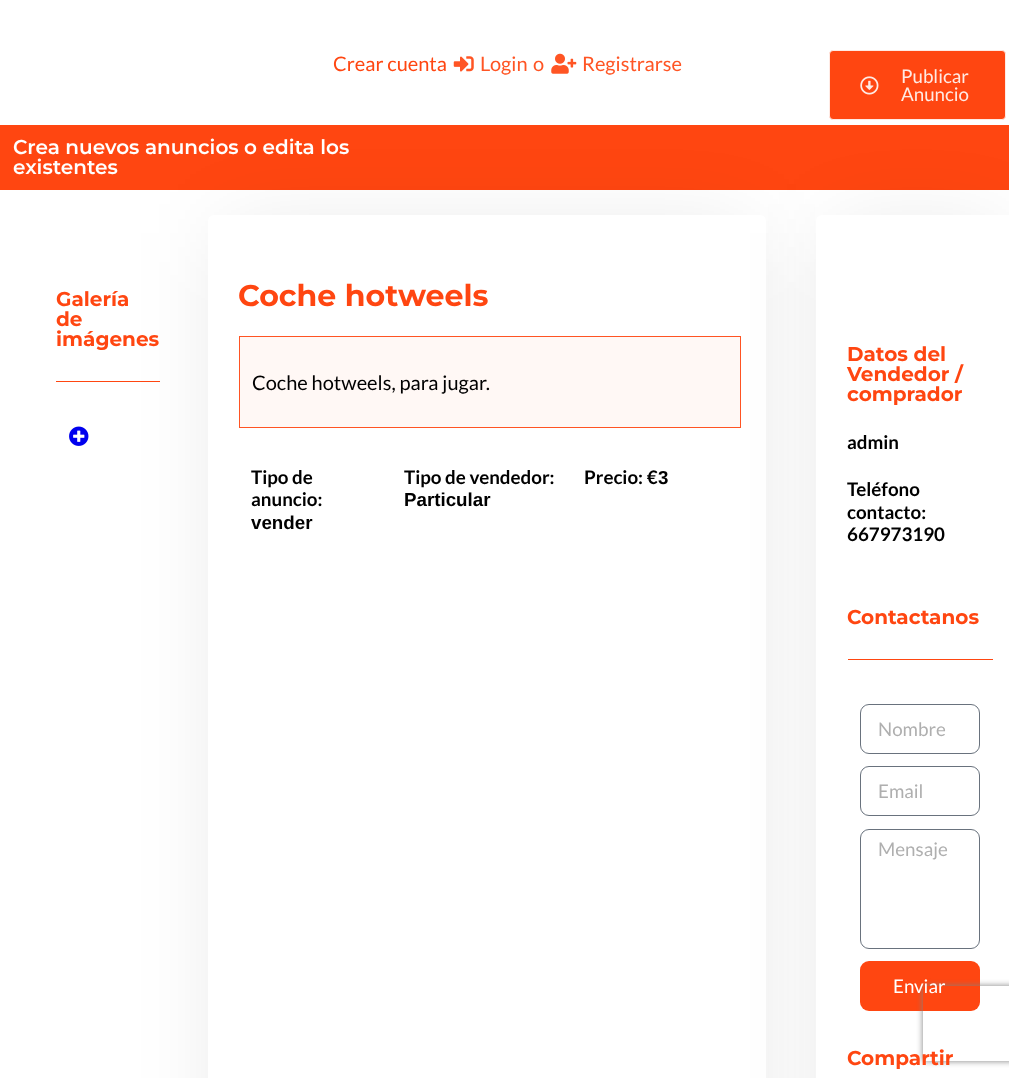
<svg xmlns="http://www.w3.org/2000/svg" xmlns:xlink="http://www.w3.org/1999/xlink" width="1009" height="1078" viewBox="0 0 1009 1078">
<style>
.cls-1{font:20px Lato;fill:#ff4611}
.cls-2{font:20px Lato;fill:#ff5524}
.cls-3{font:18.75px Lato;fill:#ffeae4}
.cls-4{font:600 20px Montserrat;fill:#ffffff}
.cls-5{font:bold 20px Montserrat;fill:#ff4611}
.cls-6{font:bold 30px Montserrat;fill:#ff4611}
.cls-7{font:20px Lato;fill:#000000}
.cls-8{font:bold 18.75px Lato;fill:#000000}
.cls-9{font:bold 18.75px Liberation Sans;fill:#000000}
.cls-10{font:18.75px Lato;fill:#afafaf}
.cls-11{font:18.75px Lato;fill:#ffffff}
</style>
<defs>
<clipPath id="clip1"><path d="M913 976H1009V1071H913ZM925.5 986H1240.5C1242 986 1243 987 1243 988.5V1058.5C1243 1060 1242 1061 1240.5 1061H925.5C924 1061 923 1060 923 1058.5V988.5C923 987 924 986 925.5 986Z" clip-rule="evenodd"/></clipPath>
</defs>
<rect width="100%" height="100%" fill="#ffffff"/>
<image xlink:href="image0.png" x="453" y="56" width="21" height="16"/>
<image xlink:href="image1.png" x="551" y="53" width="26" height="21"/>
<rect fill="#ff4611" x="0" y="125" width="1009" height="65"/>
<rect fill="#ff4611" x="56" y="381" width="104" height="1"/>
<rect fill="#000000" fill-opacity="0.1" filter="blur(44px)" x="225" y="233" width="524" height="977"/>
<rect fill="#ffffff" x="208" y="215" width="558" height="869" rx="6"/>
<rect fill="#fff8f5" stroke="#ff5423" x="239.5" y="336.5" width="501" height="91"/>
<rect fill="#000000" fill-opacity="0.1" filter="blur(44px)" x="834" y="233" width="166" height="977"/>
<rect fill="#ff4611" stroke="#ffeae4" x="829.5" y="50.5" width="176" height="69" rx="3.5"/>
<image xlink:href="image2.png" x="860" y="76" width="19" height="19"/>
<image xlink:href="image3.png" x="69" y="426" width="20" height="20"/>
<rect fill="#ffffff" x="816" y="215" width="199" height="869" rx="6"/>
<rect fill="#ff4611" x="848" y="659" width="145" height="1"/>
<rect fill="none" stroke="#69727d" x="860.5" y="704.5" width="119" height="49" rx="8.5"/>
<rect fill="none" stroke="#69727d" x="860.5" y="766.5" width="119" height="49" rx="8.5"/>
<rect fill="none" stroke="#69727d" x="860.5" y="829.5" width="119" height="119" rx="8.5"/>
<rect fill="#ff4611" x="860" y="961" width="120" height="50" rx="9"/>
<g clip-path="url(#clip1)">
<rect fill="#808080" filter="blur(3px)" x="923" y="986" width="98" height="75" rx="2.5"/>
</g>
<text class="cls-1" x="333" y="71">Crear cuenta</text>
<text class="cls-2" x="480" y="71">Login</text>
<text class="cls-2" x="533" y="71">o</text>
<text class="cls-2" x="582" y="71">Registrarse</text>
<text class="cls-3"><tspan x="901" y="83">Publicar</tspan><tspan x="901" y="101">Anuncio</tspan></text>
<text class="cls-4"><tspan x="13" y="154">Crea nuevos anuncios o edita los</tspan><tspan x="13" y="174">existentes</tspan></text>
<text class="cls-5"><tspan x="56" y="306">Galería</tspan><tspan x="56" y="326">de</tspan><tspan x="56" y="346">imágenes</tspan></text>
<text class="cls-6" x="238" y="306">Coche hotweels</text>
<text class="cls-7" x="252" y="390">Coche hotweels, para jugar.</text>
<text class="cls-8"><tspan x="251" y="484">Tipo de</tspan><tspan x="251" y="506">anuncio:</tspan></text>
<text class="cls-9" x="251" y="529">vender</text>
<text class="cls-8" x="404" y="484">Tipo de vendedor:</text>
<text class="cls-9" x="404" y="506">Particular</text>
<text class="cls-8" x="584" y="484">Precio: €</text>
<text class="cls-9" x="658" y="484">3</text>
<text class="cls-5"><tspan x="847" y="361">Datos del</tspan><tspan x="847" y="381">Vendedor /</tspan><tspan x="847" y="401">comprador</tspan></text>
<text class="cls-8" x="847" y="449">admin</text>
<text class="cls-8"><tspan x="847" y="496">Teléfono</tspan><tspan x="847" y="519">contacto:</tspan><tspan x="847" y="541">667973190</tspan></text>
<text class="cls-5" x="847" y="624">Contactanos</text>
<text class="cls-10" x="878" y="736">Nombre</text>
<text class="cls-10" x="878" y="798">Email</text>
<text class="cls-10" x="878" y="856">Mensaje</text>
<text class="cls-11" x="893" y="993">Enviar</text>
<text class="cls-5" x="847" y="1065">Compartir</text>
</svg>
